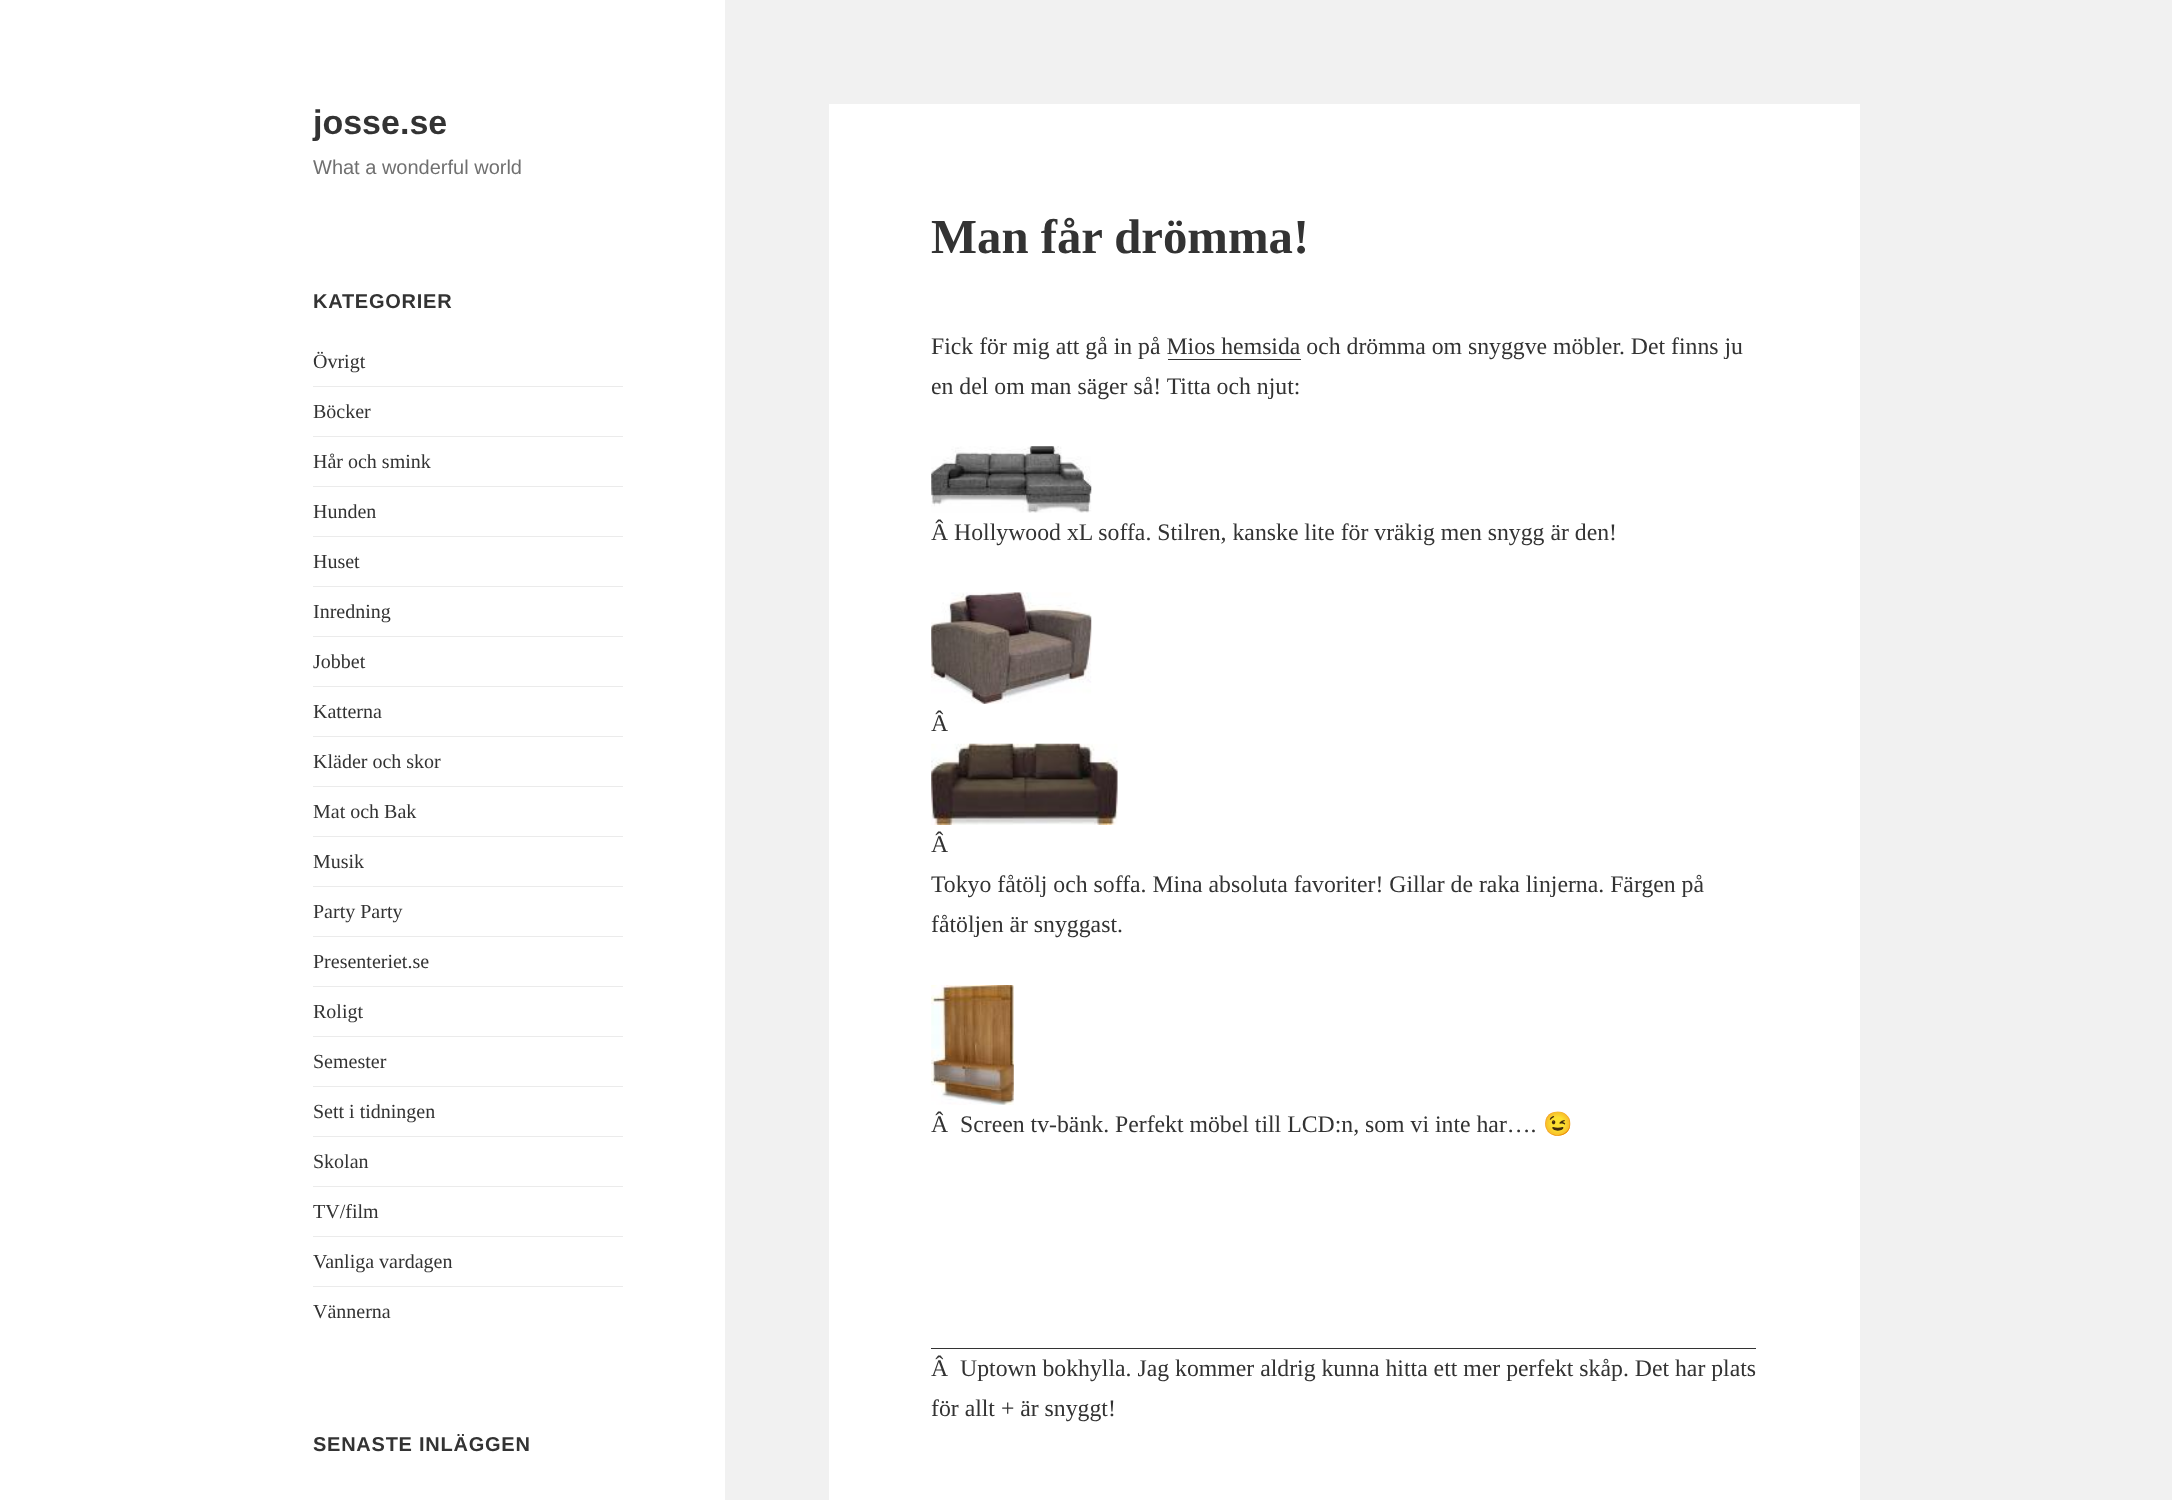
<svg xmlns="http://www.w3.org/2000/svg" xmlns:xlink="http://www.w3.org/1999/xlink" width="2172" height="1500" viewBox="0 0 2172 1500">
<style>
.cls-1{font:bold 34px Liberation Sans;fill:#333333}
.cls-2{font:20px Liberation Sans;fill:#707070}
.cls-3{font:bold 20px Liberation Sans;letter-spacing:0.75px;fill:#333333}
.cls-4{font:20px Liberation Serif;fill:#333333}
.cls-5{font:bold 48.75px Liberation Serif;fill:#333333}
.cls-6{font:23.75px Liberation Serif;fill:#333333}
.cls-7{font:23.75px Noto Color Emoji;fill:#333333}
</style>
<rect width="100%" height="100%" fill="#f1f1f1"/>
<rect fill="#ffffff" x="0" y="0" width="725" height="1500"/>
<rect fill="#ebebeb" x="313" y="386" width="310" height="1"/>
<rect fill="#ebebeb" x="313" y="436" width="310" height="1"/>
<rect fill="#ebebeb" x="313" y="486" width="310" height="1"/>
<rect fill="#ebebeb" x="313" y="536" width="310" height="1"/>
<rect fill="#ebebeb" x="313" y="586" width="310" height="1"/>
<rect fill="#ebebeb" x="313" y="636" width="310" height="1"/>
<rect fill="#ebebeb" x="313" y="686" width="310" height="1"/>
<rect fill="#ebebeb" x="313" y="736" width="310" height="1"/>
<rect fill="#ebebeb" x="313" y="786" width="310" height="1"/>
<rect fill="#ebebeb" x="313" y="836" width="310" height="1"/>
<rect fill="#ebebeb" x="313" y="886" width="310" height="1"/>
<rect fill="#ebebeb" x="313" y="936" width="310" height="1"/>
<rect fill="#ebebeb" x="313" y="986" width="310" height="1"/>
<rect fill="#ebebeb" x="313" y="1036" width="310" height="1"/>
<rect fill="#ebebeb" x="313" y="1086" width="310" height="1"/>
<rect fill="#ebebeb" x="313" y="1136" width="310" height="1"/>
<rect fill="#ebebeb" x="313" y="1186" width="310" height="1"/>
<rect fill="#ebebeb" x="313" y="1236" width="310" height="1"/>
<rect fill="#ebebeb" x="313" y="1286" width="310" height="1"/>
<rect fill="#ffffff" x="829" y="104" width="1031" height="1396"/>
<rect fill="#333333" x="1168" y="359" width="133" height="1"/>
<image xlink:href="image0.png" x="931" y="446" width="161" height="67"/>
<image xlink:href="image1.png" x="931" y="592" width="161" height="112"/>
<image xlink:href="image2.png" x="931" y="743" width="187" height="82"/>
<image xlink:href="image3.png" x="931" y="985" width="83" height="120"/>
<rect fill="#333333" x="931" y="1348" width="825" height="1"/>
<text class="cls-1" x="313" y="134">josse.se</text>
<text class="cls-2" x="313" y="174">What a wonderful world</text>
<text class="cls-3" x="313" y="308">KATEGORIER</text>
<text class="cls-4" x="313" y="368">Övrigt</text>
<text class="cls-4" x="313" y="418">Böcker</text>
<text class="cls-4" x="313" y="468">Hår och smink</text>
<text class="cls-4" x="313" y="518">Hunden</text>
<text class="cls-4" x="313" y="568">Huset</text>
<text class="cls-4" x="313" y="618">Inredning</text>
<text class="cls-4" x="313" y="668">Jobbet</text>
<text class="cls-4" x="313" y="718">Katterna</text>
<text class="cls-4" x="313" y="768">Kläder och skor</text>
<text class="cls-4" x="313" y="818">Mat och Bak</text>
<text class="cls-4" x="313" y="868">Musik</text>
<text class="cls-4" x="313" y="918">Party Party</text>
<text class="cls-4" x="313" y="968">Presenteriet.se</text>
<text class="cls-4" x="313" y="1018">Roligt</text>
<text class="cls-4" x="313" y="1068">Semester</text>
<text class="cls-4" x="313" y="1118">Sett i tidningen</text>
<text class="cls-4" x="313" y="1168">Skolan</text>
<text class="cls-4" x="313" y="1218">TV/film</text>
<text class="cls-4" x="313" y="1268">Vanliga vardagen</text>
<text class="cls-4" x="313" y="1318">Vännerna</text>
<text class="cls-3" x="313" y="1451">SENASTE INLÄGGEN</text>
<text class="cls-5" x="931" y="253">Man får drömma!</text>
<text class="cls-6"><tspan x="931" y="354">Fick för mig att gå in på Mios hemsida och drömma om snyggve möbler. Det finns ju</tspan><tspan x="931" y="394">en del om man säger så! Titta och njut:</tspan></text>
<text class="cls-6" x="931" y="540">Â Hollywood xL soffa. Stilren, kanske lite för vräkig men snygg är den!</text>
<text class="cls-6" x="931" y="731">Â</text>
<text class="cls-6"><tspan x="931" y="852">Â</tspan><tspan x="931" y="892">Tokyo fåtölj och soffa. Mina absoluta favoriter! Gillar de raka linjerna. Färgen på</tspan><tspan x="931" y="932">fåtöljen är snyggast.</tspan></text>
<text class="cls-6" xml:space="preserve" x="931" y="1132">Â  Screen tv-bänk. Perfekt möbel till LCD:n, som vi inte har….</text>
<text class="cls-7" x="1543" y="1132">😉</text>
<text class="cls-6" xml:space="preserve"><tspan x="931" y="1376">Â  Uptown bokhylla. Jag kommer aldrig kunna hitta ett mer perfekt skåp. Det har plats</tspan><tspan x="931" y="1416">för allt + är snyggt!</tspan></text>
</svg>
